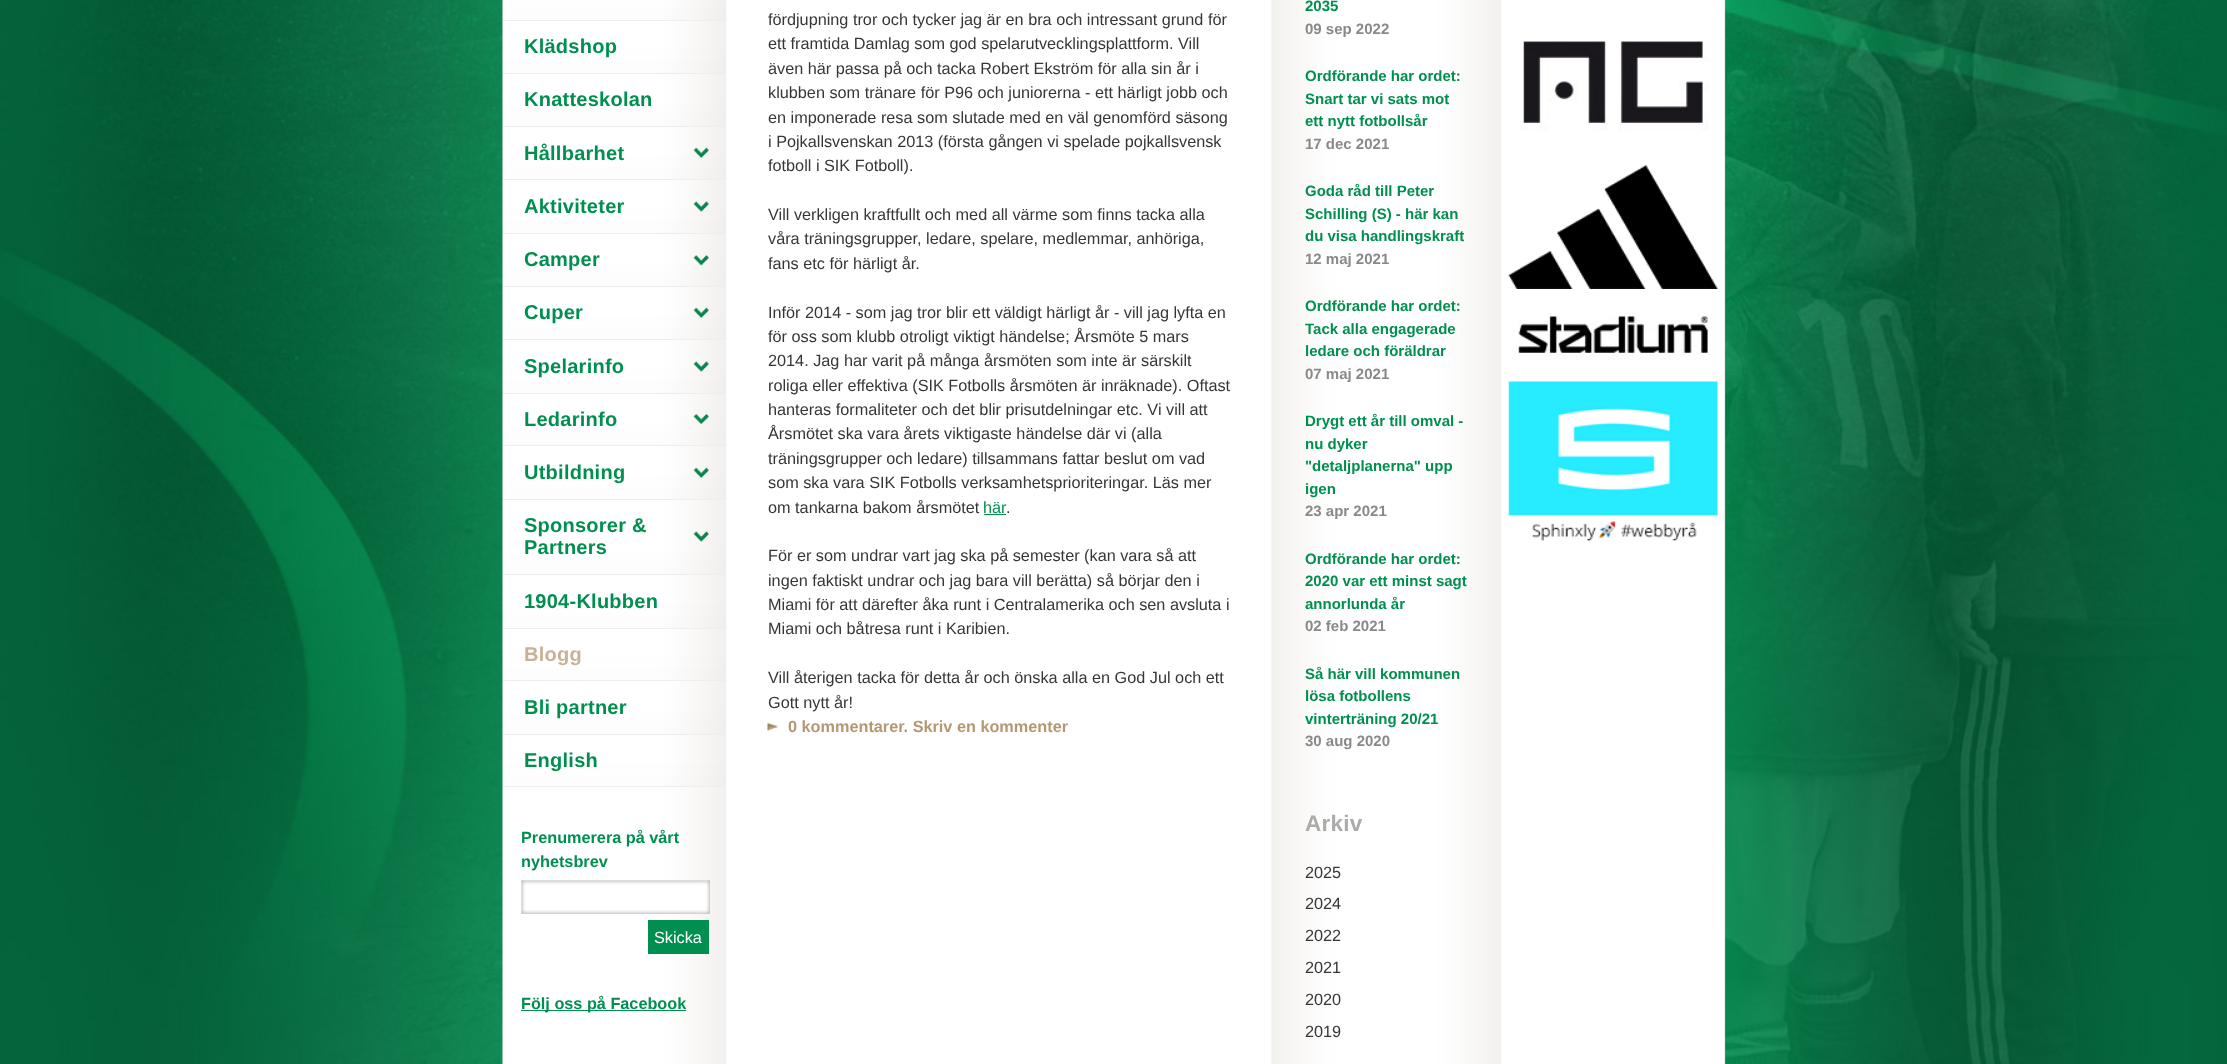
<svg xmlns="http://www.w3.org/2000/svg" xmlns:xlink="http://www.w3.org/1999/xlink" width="2227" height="1064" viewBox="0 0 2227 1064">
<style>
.cls-1{font:bold 20px Liberation Sans;letter-spacing:0.25px;fill:#018f50}
.cls-2{font:bold 20px Liberation Sans;letter-spacing:0.25px;fill:#c6b296}
.cls-3{font:bold 16.25px Liberation Sans;fill:#018f50}
.cls-4{font:16.25px Liberation Sans;fill:#ffffff}
.cls-5{font:16.25px Liberation Sans;fill:#363636}
.cls-6{font:16.25px Liberation Sans;fill:#018f50}
.cls-7{font:bold 16.25px Liberation Sans;fill:#b39873}
.cls-8{font:bold 15px Liberation Sans;fill:#018f50}
.cls-9{font:bold 15px Liberation Sans;fill:#898989}
.cls-10{font:bold 22.5px Liberation Sans;letter-spacing:0.25px;fill:#ababaa}
</style>
<rect width="100%" height="100%" fill="#ffffff"/>
<image xlink:href="image0.png" x="0" y="0" width="2227" height="1064"/>
<image xlink:href="image1.png" x="502" y="0" width="1224" height="1064"/>
<rect fill="#eeeeee" x="503" y="20" width="223" height="1"/>
<rect fill="#eeeeee" x="503" y="73" width="223" height="1"/>
<rect fill="#eeeeee" x="503" y="126" width="223" height="1"/>
<rect fill="#eeeeee" x="503" y="179" width="223" height="1"/>
<image xlink:href="image2.png" x="693" y="147" width="16" height="11"/>
<rect fill="#eeeeee" x="503" y="233" width="223" height="1"/>
<image xlink:href="image3.png" x="693" y="201" width="16" height="11"/>
<rect fill="#eeeeee" x="503" y="286" width="223" height="1"/>
<image xlink:href="image4.png" x="693" y="255" width="16" height="11"/>
<rect fill="#eeeeee" x="503" y="339" width="223" height="1"/>
<image xlink:href="image2.png" x="693" y="307" width="16" height="11"/>
<rect fill="#eeeeee" x="503" y="393" width="223" height="1"/>
<image xlink:href="image3.png" x="693" y="361" width="16" height="11"/>
<rect fill="#eeeeee" x="503" y="445" width="223" height="1"/>
<image xlink:href="image5.png" x="693" y="414" width="16" height="10"/>
<rect fill="#eeeeee" x="503" y="499" width="223" height="1"/>
<image xlink:href="image2.png" x="693" y="467" width="16" height="11"/>
<rect fill="#eeeeee" x="503" y="574" width="223" height="1"/>
<image xlink:href="image6.png" x="693" y="531" width="16" height="11"/>
<rect fill="#eeeeee" x="503" y="628" width="223" height="1"/>
<rect fill="#eeeeee" x="503" y="680" width="223" height="1"/>
<rect fill="#eeeeee" x="503" y="734" width="223" height="1"/>
<rect fill="#eeeeee" x="503" y="786" width="223" height="1"/>
<image xlink:href="image7.png" x="521" y="880" width="189" height="34"/>
<rect fill="#018f50" x="648" y="920" width="61" height="34"/>
<rect fill="#018f50" x="521" y="1010" width="165" height="1"/>
<rect fill="#018f50" x="984" y="514" width="22" height="1"/>
<image xlink:href="image8.png" x="767" y="722" width="12" height="9"/>
<image xlink:href="image9.png" x="1520" y="41" width="189" height="90"/>
<image xlink:href="image10.png" x="1508" y="165" width="210" height="124"/>
<image xlink:href="image11.png" x="1518" y="313" width="191" height="47"/>
<image xlink:href="image12.png" x="1508" y="381" width="210" height="160"/>
<text class="cls-1" x="524" y="53">Klädshop</text>
<text class="cls-1" x="524" y="106">Knatteskolan</text>
<text class="cls-1" x="524" y="160">Hållbarhet</text>
<text class="cls-1" x="524" y="213">Aktiviteter</text>
<text class="cls-1" x="524" y="266">Camper</text>
<text class="cls-1" x="524" y="319">Cuper</text>
<text class="cls-1" x="524" y="373">Spelarinfo</text>
<text class="cls-1" x="524" y="426">Ledarinfo</text>
<text class="cls-1" x="524" y="479">Utbildning</text>
<text class="cls-1"><tspan x="524" y="532">Sponsorer &amp;</tspan><tspan x="524" y="554">Partners</tspan></text>
<text class="cls-1" x="524" y="608">1904-Klubben</text>
<text class="cls-2" x="524" y="661">Blogg</text>
<text class="cls-1" x="524" y="714">Bli partner</text>
<text class="cls-1" x="524" y="767">English</text>
<text class="cls-3"><tspan x="521" y="843">Prenumerera på vårt</tspan><tspan x="521" y="867">nyhetsbrev</tspan></text>
<text class="cls-4" x="654" y="943">Skicka</text>
<text class="cls-3" x="521" y="1009">Följ oss på Facebook</text>
<text class="cls-5"><tspan x="768" y="25">fördjupning tror och tycker jag är en bra och intressant grund för</tspan><tspan x="768" y="49">ett framtida Damlag som god spelarutvecklingsplattform. Vill</tspan><tspan x="768" y="74">även här passa på och tacka Robert Ekström för alla sin år i</tspan><tspan x="768" y="98">klubben som tränare för P96 och juniorerna - ett härligt jobb och</tspan><tspan x="768" y="123">en imponerade resa som slutade med en väl genomförd säsong</tspan><tspan x="768" y="147">i Pojkallsvenskan 2013 (första gången vi spelade pojkallsvensk</tspan><tspan x="768" y="171">fotboll i SIK Fotboll).</tspan></text>
<text class="cls-5"><tspan x="768" y="220">Vill verkligen kraftfullt och med all värme som finns tacka alla</tspan><tspan x="768" y="244">våra träningsgrupper, ledare, spelare, medlemmar, anhöriga,</tspan><tspan x="768" y="269">fans etc för härligt år.</tspan></text>
<text class="cls-5"><tspan x="768" y="318">Inför 2014 - som jag tror blir ett väldigt härligt år - vill jag lyfta en</tspan><tspan x="768" y="342">för oss som klubb otroligt viktigt händelse; Årsmöte 5 mars</tspan><tspan x="768" y="366">2014. Jag har varit på många årsmöten som inte är särskilt</tspan><tspan x="768" y="391">roliga eller effektiva (SIK Fotbolls årsmöten är inräknade). Oftast</tspan><tspan x="768" y="415">hanteras formaliteter och det blir prisutdelningar etc. Vi vill att</tspan><tspan x="768" y="439">Årsmötet ska vara årets viktigaste händelse där vi (alla</tspan><tspan x="768" y="464">träningsgrupper och ledare) tillsammans fattar beslut om vad</tspan><tspan x="768" y="488">som ska vara SIK Fotbolls verksamhetsprioriteringar. Läs mer</tspan><tspan x="768" y="513">om tankarna bakom årsmötet</tspan></text>
<text class="cls-6" x="983" y="513">här</text>
<text class="cls-5" x="1006" y="513">.</text>
<text class="cls-5"><tspan x="768" y="561">För er som undrar vart jag ska på semester (kan vara så att</tspan><tspan x="768" y="586">ingen faktiskt undrar och jag bara vill berätta) så börjar den i</tspan><tspan x="768" y="610">Miami för att därefter åka runt i Centralamerika och sen avsluta i</tspan><tspan x="768" y="634">Miami och båtresa runt i Karibien.</tspan></text>
<text class="cls-5"><tspan x="768" y="683">Vill återigen tacka för detta år och önska alla en God Jul och ett</tspan><tspan x="768" y="708">Gott nytt år!</tspan></text>
<text class="cls-7" x="788" y="732">0 kommentarer. Skriv en kommenter</text>
<text class="cls-8" x="1305" y="11">2035</text>
<text class="cls-9" x="1305" y="34">09 sep 2022</text>
<text class="cls-8"><tspan x="1305" y="81">Ordförande har ordet:</tspan><tspan x="1305" y="104">Snart tar vi sats mot</tspan><tspan x="1305" y="126">ett nytt fotbollsår</tspan></text>
<text class="cls-9" x="1305" y="149">17 dec 2021</text>
<text class="cls-8"><tspan x="1305" y="196">Goda råd till Peter</tspan><tspan x="1305" y="219">Schilling (S) - här kan</tspan><tspan x="1305" y="241">du visa handlingskraft</tspan></text>
<text class="cls-9" x="1305" y="264">12 maj 2021</text>
<text class="cls-8"><tspan x="1305" y="311">Ordförande har ordet:</tspan><tspan x="1305" y="334">Tack alla engagerade</tspan><tspan x="1305" y="356">ledare och föräldrar</tspan></text>
<text class="cls-9" x="1305" y="379">07 maj 2021</text>
<text class="cls-8"><tspan x="1305" y="426">Drygt ett år till omval -</tspan><tspan x="1305" y="449">nu dyker</tspan><tspan x="1305" y="471">"detaljplanerna" upp</tspan><tspan x="1305" y="494">igen</tspan></text>
<text class="cls-9" x="1305" y="516">23 apr 2021</text>
<text class="cls-8"><tspan x="1305" y="564">Ordförande har ordet:</tspan><tspan x="1305" y="586">2020 var ett minst sagt</tspan><tspan x="1305" y="609">annorlunda år</tspan></text>
<text class="cls-9" x="1305" y="631">02 feb 2021</text>
<text class="cls-8"><tspan x="1305" y="679">Så här vill kommunen</tspan><tspan x="1305" y="701">lösa fotbollens</tspan><tspan x="1305" y="724">vinterträning 20/21</tspan></text>
<text class="cls-9" x="1305" y="746">30 aug 2020</text>
<text class="cls-10" x="1305" y="831">Arkiv</text>
<text class="cls-5"><tspan x="1305" y="878">2025</tspan><tspan x="1305" y="909">2024</tspan><tspan x="1305" y="941">2022</tspan><tspan x="1305" y="973">2021</tspan><tspan x="1305" y="1005">2020</tspan><tspan x="1305" y="1037">2019</tspan></text>
</svg>
